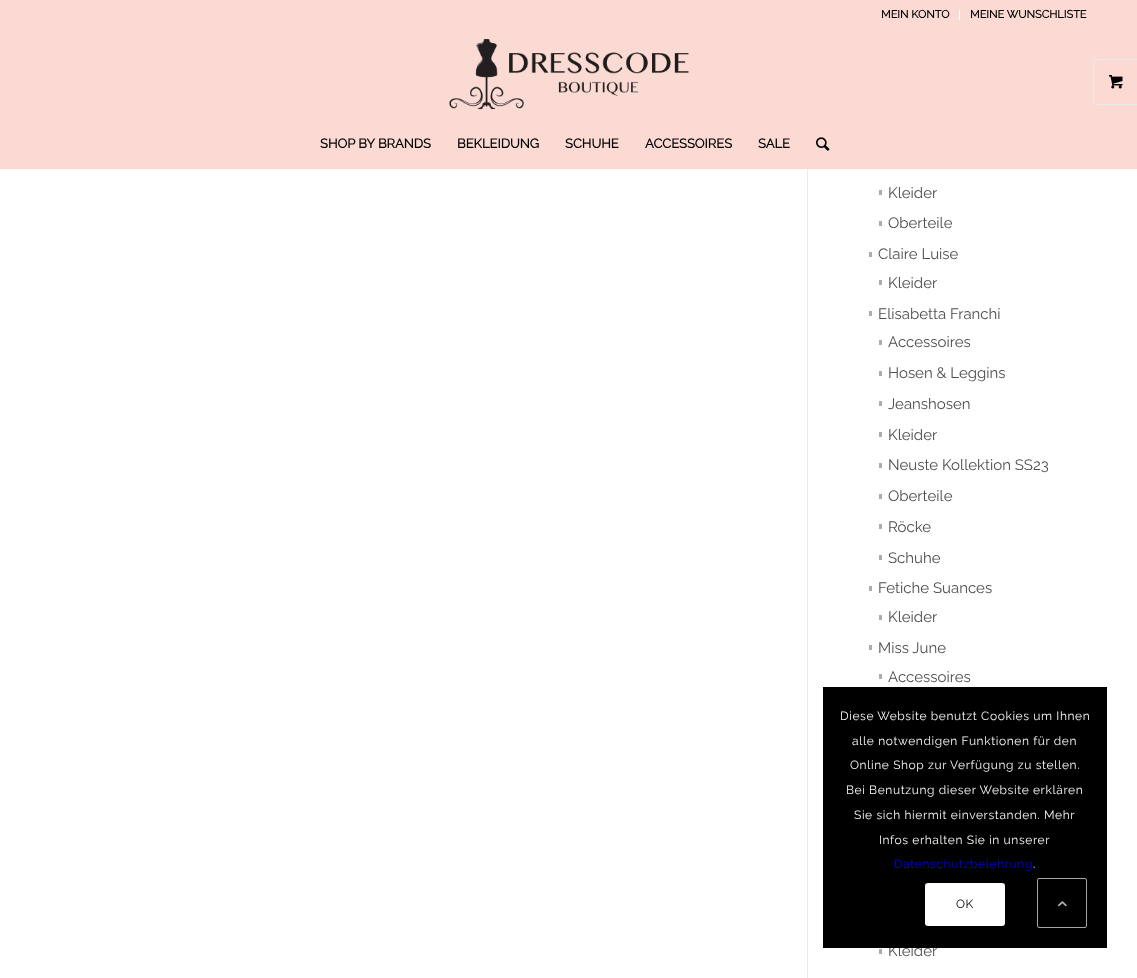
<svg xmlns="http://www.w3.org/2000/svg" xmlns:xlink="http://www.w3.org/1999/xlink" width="1137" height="978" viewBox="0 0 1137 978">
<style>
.cls-1{font:bold 11px Raleway;fill:#000000}
.cls-2{font:bold 13px Raleway;fill:#000000}
.cls-3{font:100 15px Raleway;fill:#4e4f4d}
.cls-4{font:100 12px Raleway;letter-spacing:0.6px;fill:#f7f7f7}
.cls-5{font:100 12px Raleway;letter-spacing:0.6px;fill:#0000ee}
.cls-6{font:100 12px Raleway;letter-spacing:0.6px;fill:#000000}
</style>
<rect width="100%" height="100%" fill="#ffffff"/>
<rect fill="#fbdad4" x="0" y="0" width="1137" height="169"/>
<rect fill="#ffffff" x="959" y="10" width="1" height="10"/>
<image xlink:href="image0.png" x="449" y="39" width="240" height="71"/>
<rect fill="none" stroke="#ebebeb" x="1093.5" y="59.5" width="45" height="45" rx="1.5"/>
<rect fill="#fbdad4" x="1094" y="60" width="1" height="44"/>
<image xlink:href="image1.png" x="1109" y="75" width="14" height="14"/>
<image xlink:href="image2.png" x="816" y="137" width="14" height="14"/>
<rect fill="#ebebeb" x="807" y="169" width="1" height="809"/>
<rect fill="#acacac" x="879" y="190" width="3" height="5"/>
<rect fill="#acacac" x="879" y="221" width="3" height="5"/>
<rect fill="#acacac" x="869" y="252" width="3" height="5"/>
<rect fill="#acacac" x="879" y="280" width="3" height="5"/>
<rect fill="#acacac" x="869" y="311" width="3" height="5"/>
<rect fill="#acacac" x="879" y="340" width="3" height="5"/>
<rect fill="#acacac" x="879" y="371" width="3" height="5"/>
<rect fill="#acacac" x="879" y="401" width="3" height="5"/>
<rect fill="#acacac" x="879" y="432" width="3" height="5"/>
<rect fill="#acacac" x="879" y="463" width="3" height="5"/>
<rect fill="#acacac" x="879" y="494" width="3" height="5"/>
<rect fill="#acacac" x="879" y="524" width="3" height="5"/>
<rect fill="#acacac" x="879" y="555" width="3" height="5"/>
<rect fill="#acacac" x="869" y="586" width="3" height="5"/>
<rect fill="#acacac" x="879" y="615" width="3" height="5"/>
<rect fill="#acacac" x="869" y="645" width="3" height="5"/>
<rect fill="#acacac" x="879" y="674" width="3" height="5"/>
<rect fill="#acacac" x="879" y="949" width="3" height="5"/>
<text class="cls-1" x="881" y="18">MEIN KONTO</text>
<text class="cls-1" x="970" y="18">MEINE WUNSCHLISTE</text>
<text class="cls-2" x="320" y="148">SHOP BY BRANDS</text>
<text class="cls-2" x="457" y="148">BEKLEIDUNG</text>
<text class="cls-2" x="565" y="148">SCHUHE</text>
<text class="cls-2" x="645" y="148">ACCESSOIRES</text>
<text class="cls-2" x="758" y="148">SALE</text>
<text class="cls-3" x="888" y="198">Kleider</text>
<text class="cls-3" x="888" y="228">Oberteile</text>
<text class="cls-3" x="878" y="259">Claire Luise</text>
<text class="cls-3" x="888" y="288">Kleider</text>
<text class="cls-3" x="878" y="319">Elisabetta Franchi</text>
<text class="cls-3" x="888" y="347">Accessoires</text>
<text class="cls-3" x="888" y="378">Hosen &amp; Leggins</text>
<text class="cls-3" x="888" y="409">Jeanshosen</text>
<text class="cls-3" x="888" y="440">Kleider</text>
<text class="cls-3" x="888" y="470">Neuste Kollektion SS23</text>
<text class="cls-3" x="888" y="501">Oberteile</text>
<text class="cls-3" x="888" y="532">Röcke</text>
<text class="cls-3" x="888" y="563">Schuhe</text>
<text class="cls-3" x="878" y="593">Fetiche Suances</text>
<text class="cls-3" x="888" y="622">Kleider</text>
<text class="cls-3" x="878" y="653">Miss June</text>
<text class="cls-3" x="888" y="682">Accessoires</text>
<text class="cls-3" x="888" y="956">Kleider</text>
<rect fill="#000000" x="823" y="687" width="284" height="261"/>
<text class="cls-4" x="840" y="720">Diese Website benutzt Cookies um Ihnen</text>
<text class="cls-4" x="852" y="745">alle notwendigen Funktionen für den</text>
<text class="cls-4" x="850" y="769">Online Shop zur Verfügung zu stellen.</text>
<text class="cls-4" x="846" y="794">Bei Benutzung dieser Website erklären</text>
<text class="cls-4" x="854" y="819">Sie sich hiermit einverstanden. Mehr</text>
<text class="cls-4" x="879" y="844">Infos erhalten Sie in unserer</text>
<text class="cls-5" x="894" y="868">Datenschutzbelehrung</text>
<text class="cls-4" x="1033" y="868">.</text>
<rect fill="#ffffff" x="925" y="883" width="80" height="43" rx="3"/>
<text class="cls-6" x="956" y="908">OK</text>
<rect fill="none" stroke="#a5a5a5" x="1037.5" y="878.5" width="49" height="49" rx="1.5"/>
<image xlink:href="image3.png" x="1058" y="901" width="9" height="6"/>
</svg>
